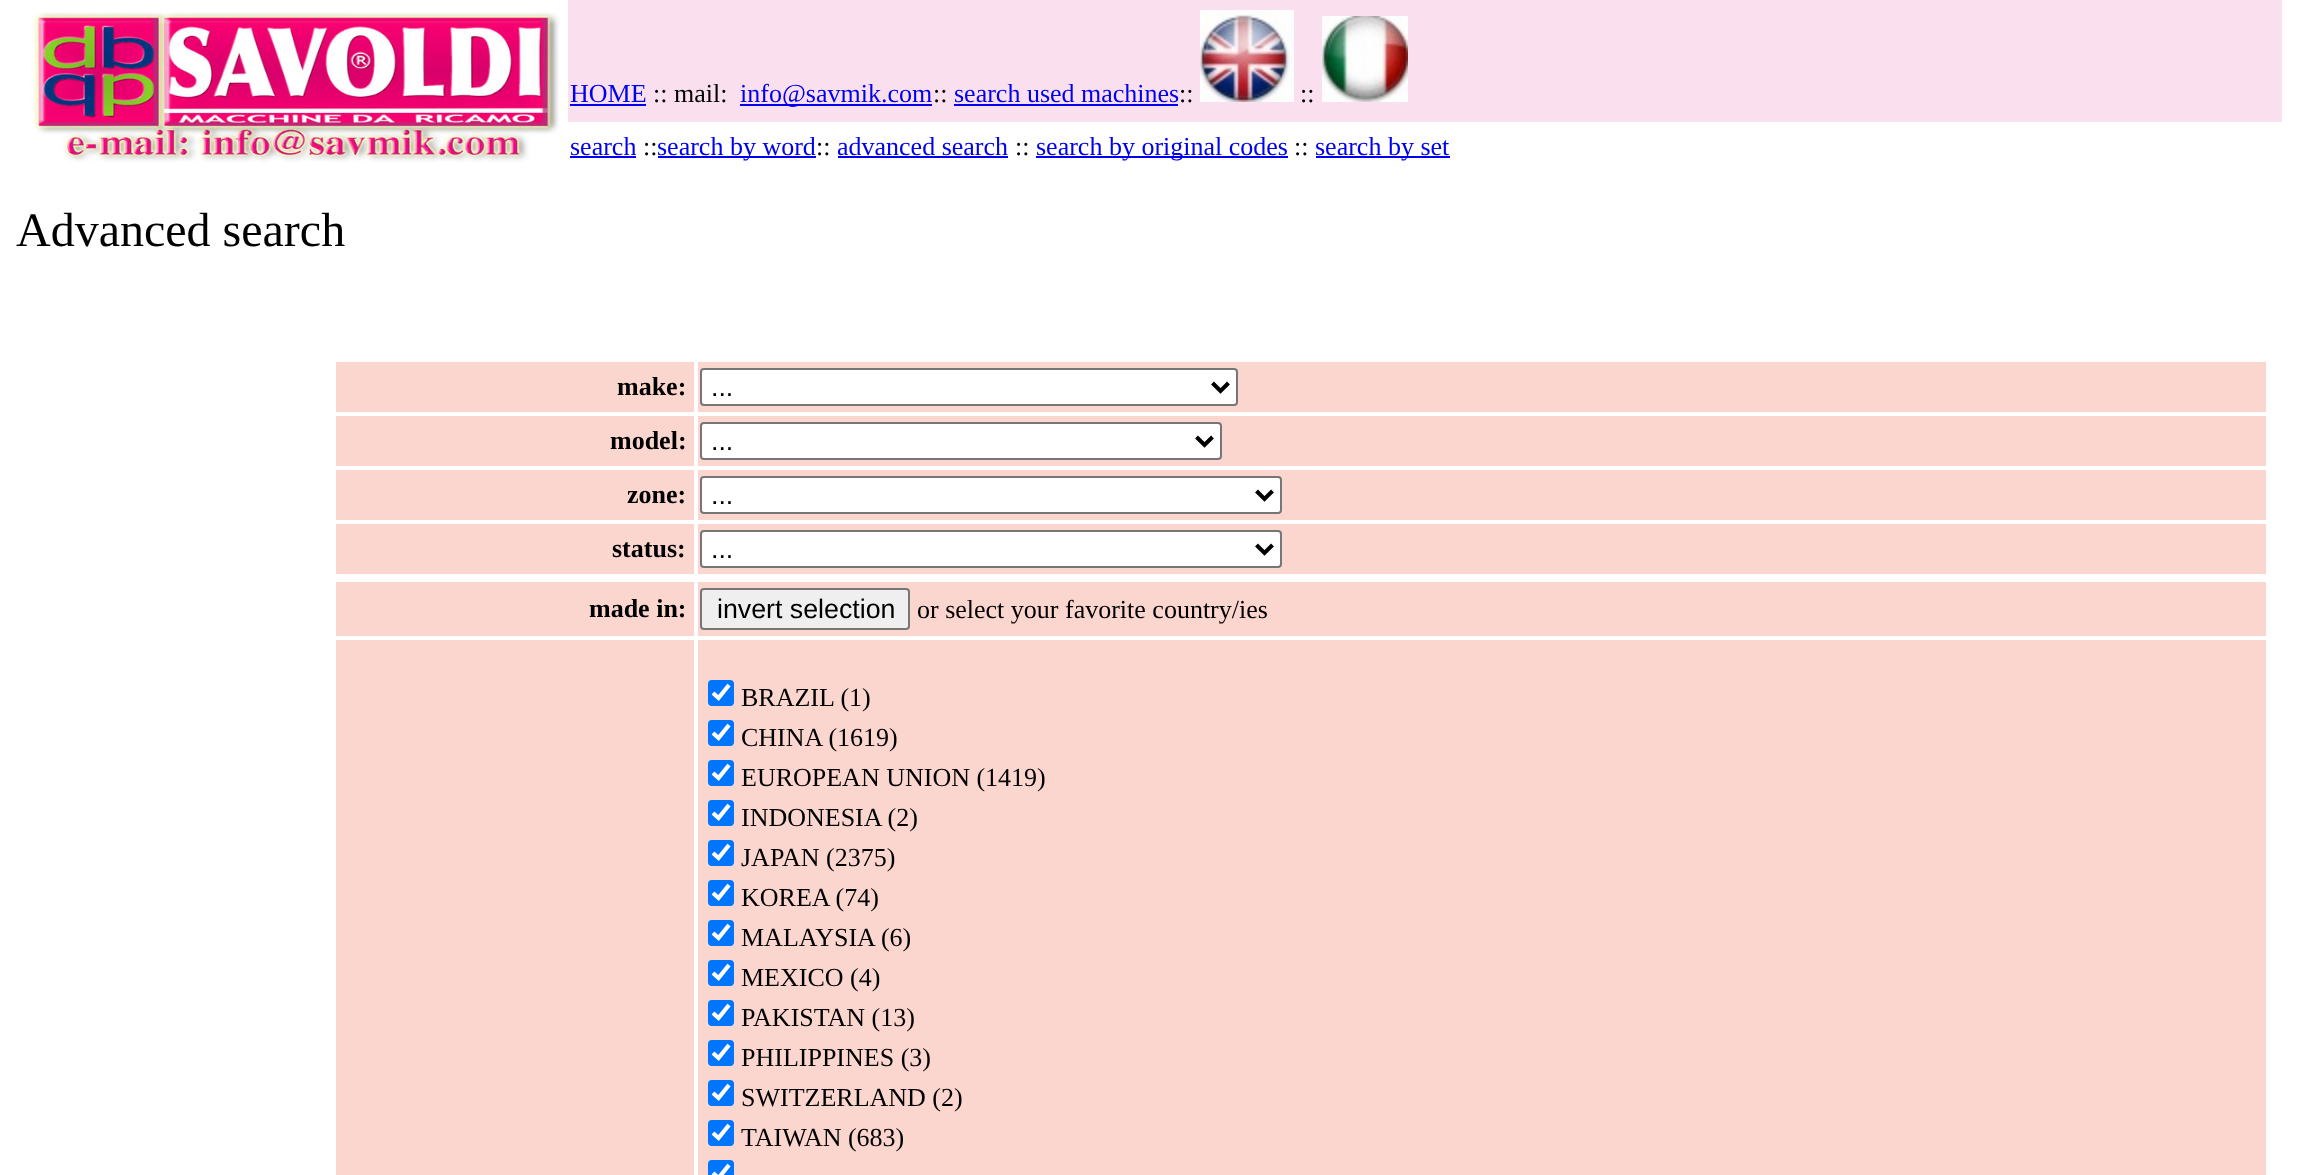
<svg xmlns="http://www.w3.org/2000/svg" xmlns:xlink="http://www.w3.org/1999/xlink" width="2301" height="1175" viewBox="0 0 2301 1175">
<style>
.cls-1{font:26px Liberation Serif;fill:#0000ee}
.cls-2{font:26px Liberation Serif;fill:#000000}
.cls-3{font:48px Liberation Serif;fill:#000000}
.cls-4{font:bold 26px Liberation Serif;fill:#000000}
.cls-5{font:26.75px Liberation Sans;fill:#000000}
</style>
<rect width="100%" height="100%" fill="#ffffff"/>
<image xlink:href="image0.png" x="29" y="12" width="530" height="150"/>
<rect fill="#fae0ef" x="568" y="0" width="1714" height="122"/>
<rect fill="#0000ee" x="570" y="104" width="76" height="2"/>
<rect fill="#0000ee" x="740" y="104" width="192" height="2"/>
<rect fill="#0000ee" x="954" y="104" width="224" height="2"/>
<image xlink:href="image1.png" x="1200" y="10" width="94" height="92"/>
<image xlink:href="image2.png" x="1322" y="16" width="86" height="86"/>
<rect fill="#0000ee" x="570" y="156" width="66" height="2"/>
<rect fill="#0000ee" x="658" y="156" width="158" height="2"/>
<rect fill="#0000ee" x="838" y="156" width="170" height="2"/>
<rect fill="#0000ee" x="1036" y="156" width="252" height="2"/>
<rect fill="#0000ee" x="1316" y="156" width="134" height="2"/>
<rect fill="#fbd6ce" x="336" y="362" width="358" height="50"/>
<rect fill="#fbd6ce" x="698" y="362" width="1568" height="50"/>
<rect fill="#ffffff" stroke="#767676" stroke-width="2" x="701" y="369" width="536" height="36" rx="3"/>
<path fill="none" stroke="#000000" stroke-width="4" d="M1212.5 383L1220.5 391L1228.5 383"/>
<rect fill="#fbd6ce" x="336" y="416" width="358" height="50"/>
<rect fill="#fbd6ce" x="698" y="416" width="1568" height="50"/>
<rect fill="#ffffff" stroke="#767676" stroke-width="2" x="701" y="423" width="520" height="36" rx="3"/>
<path fill="none" stroke="#000000" stroke-width="4" d="M1196.5 437L1204.5 445L1212.5 437"/>
<rect fill="#fbd6ce" x="336" y="470" width="358" height="50"/>
<rect fill="#fbd6ce" x="698" y="470" width="1568" height="50"/>
<rect fill="#ffffff" stroke="#767676" stroke-width="2" x="701" y="477" width="580" height="36" rx="3"/>
<path fill="none" stroke="#000000" stroke-width="4" d="M1256.5 491L1264.5 499L1272.5 491"/>
<rect fill="#fbd6ce" x="336" y="524" width="358" height="50"/>
<rect fill="#fbd6ce" x="698" y="524" width="1568" height="50"/>
<rect fill="#ffffff" stroke="#767676" stroke-width="2" x="701" y="531" width="580" height="36" rx="3"/>
<path fill="none" stroke="#000000" stroke-width="4" d="M1256.5 545L1264.5 553L1272.5 545"/>
<rect fill="#fbd6ce" x="336" y="582" width="358" height="54"/>
<rect fill="#fbd6ce" x="698" y="582" width="1568" height="54"/>
<rect fill="#efefef" stroke="#767676" stroke-width="2" x="701" y="589" width="208" height="40" rx="3"/>
<rect fill="#fbd6ce" x="336" y="640" width="358" height="535"/>
<rect fill="#fbd6ce" x="698" y="640" width="1568" height="535"/>
<rect fill="#0075ff" x="708" y="680" width="26" height="26" rx="4"/>
<path fill="none" stroke="#ffffff" stroke-width="4.2" d="M713 693L718.5 698L729 685"/>
<rect fill="#0075ff" x="708" y="720" width="26" height="26" rx="4"/>
<path fill="none" stroke="#ffffff" stroke-width="4.2" d="M713 733L718.5 738L729 725"/>
<rect fill="#0075ff" x="708" y="760" width="26" height="26" rx="4"/>
<path fill="none" stroke="#ffffff" stroke-width="4.2" d="M713 773L718.5 778L729 765"/>
<rect fill="#0075ff" x="708" y="800" width="26" height="26" rx="4"/>
<path fill="none" stroke="#ffffff" stroke-width="4.2" d="M713 813L718.5 818L729 805"/>
<rect fill="#0075ff" x="708" y="840" width="26" height="26" rx="4"/>
<path fill="none" stroke="#ffffff" stroke-width="4.2" d="M713 853L718.5 858L729 845"/>
<rect fill="#0075ff" x="708" y="880" width="26" height="26" rx="4"/>
<path fill="none" stroke="#ffffff" stroke-width="4.2" d="M713 893L718.5 898L729 885"/>
<rect fill="#0075ff" x="708" y="920" width="26" height="26" rx="4"/>
<path fill="none" stroke="#ffffff" stroke-width="4.2" d="M713 933L718.5 938L729 925"/>
<rect fill="#0075ff" x="708" y="960" width="26" height="26" rx="4"/>
<path fill="none" stroke="#ffffff" stroke-width="4.2" d="M713 973L718.5 978L729 965"/>
<rect fill="#0075ff" x="708" y="1000" width="26" height="26" rx="4"/>
<path fill="none" stroke="#ffffff" stroke-width="4.2" d="M713 1013L718.5 1018L729 1005"/>
<rect fill="#0075ff" x="708" y="1040" width="26" height="26" rx="4"/>
<path fill="none" stroke="#ffffff" stroke-width="4.2" d="M713 1053L718.5 1058L729 1045"/>
<rect fill="#0075ff" x="708" y="1080" width="26" height="26" rx="4"/>
<path fill="none" stroke="#ffffff" stroke-width="4.2" d="M713 1093L718.5 1098L729 1085"/>
<rect fill="#0075ff" x="708" y="1120" width="26" height="26" rx="4"/>
<path fill="none" stroke="#ffffff" stroke-width="4.2" d="M713 1133L718.5 1138L729 1125"/>
<rect fill="#0075ff" x="708" y="1160" width="26" height="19" rx="4"/>
<path fill="none" stroke="#ffffff" stroke-width="4.2" d="M713 1173L718.5 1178L729 1165"/>
<text class="cls-1" x="570" y="102">HOME</text>
<text class="cls-2" x="653" y="102">:: mail:</text>
<text class="cls-1" x="740" y="102">info@savmik.com</text>
<text class="cls-2" x="933" y="102">::</text>
<text class="cls-1" x="954" y="102">search used machines</text>
<text class="cls-2" x="1179" y="102">::</text>
<text class="cls-2" x="1300" y="102">::</text>
<text class="cls-1" x="570" y="155">search</text>
<text class="cls-2" x="643" y="155">::</text>
<text class="cls-1" x="657" y="155">search by word</text>
<text class="cls-2" x="816" y="155">::</text>
<text class="cls-1" x="837" y="155">advanced search</text>
<text class="cls-2" x="1015" y="155">::</text>
<text class="cls-1" x="1036" y="155">search by original codes</text>
<text class="cls-2" x="1294" y="155">::</text>
<text class="cls-1" x="1315" y="155">search by set</text>
<text class="cls-3" x="16" y="246">Advanced search</text>
<text class="cls-4" x="617" y="395">make:</text>
<text class="cls-5" x="711" y="396">...</text>
<text class="cls-4" x="610" y="449">model:</text>
<text class="cls-5" x="711" y="450">...</text>
<text class="cls-4" x="627" y="503">zone:</text>
<text class="cls-5" x="711" y="504">...</text>
<text class="cls-4" x="612" y="557">status:</text>
<text class="cls-5" x="711" y="558">...</text>
<text class="cls-4" x="589" y="617">made in:</text>
<text class="cls-5" x="717" y="618">invert selection</text>
<text class="cls-2" x="917" y="618">or select your favorite country/ies</text>
<text class="cls-2"><tspan x="741" y="706">BRAZIL (1)</tspan><tspan x="741" y="746">CHINA (1619)</tspan><tspan x="741" y="786">EUROPEAN UNION (1419)</tspan><tspan x="741" y="826">INDONESIA (2)</tspan><tspan x="741" y="866">JAPAN (2375)</tspan><tspan x="741" y="906">KOREA (74)</tspan><tspan x="741" y="946">MALAYSIA (6)</tspan><tspan x="741" y="986">MEXICO (4)</tspan><tspan x="741" y="1026">PAKISTAN (13)</tspan><tspan x="741" y="1066">PHILIPPINES (3)</tspan><tspan x="741" y="1106">SWITZERLAND (2)</tspan><tspan x="741" y="1146">TAIWAN (683)</tspan></text>
</svg>
